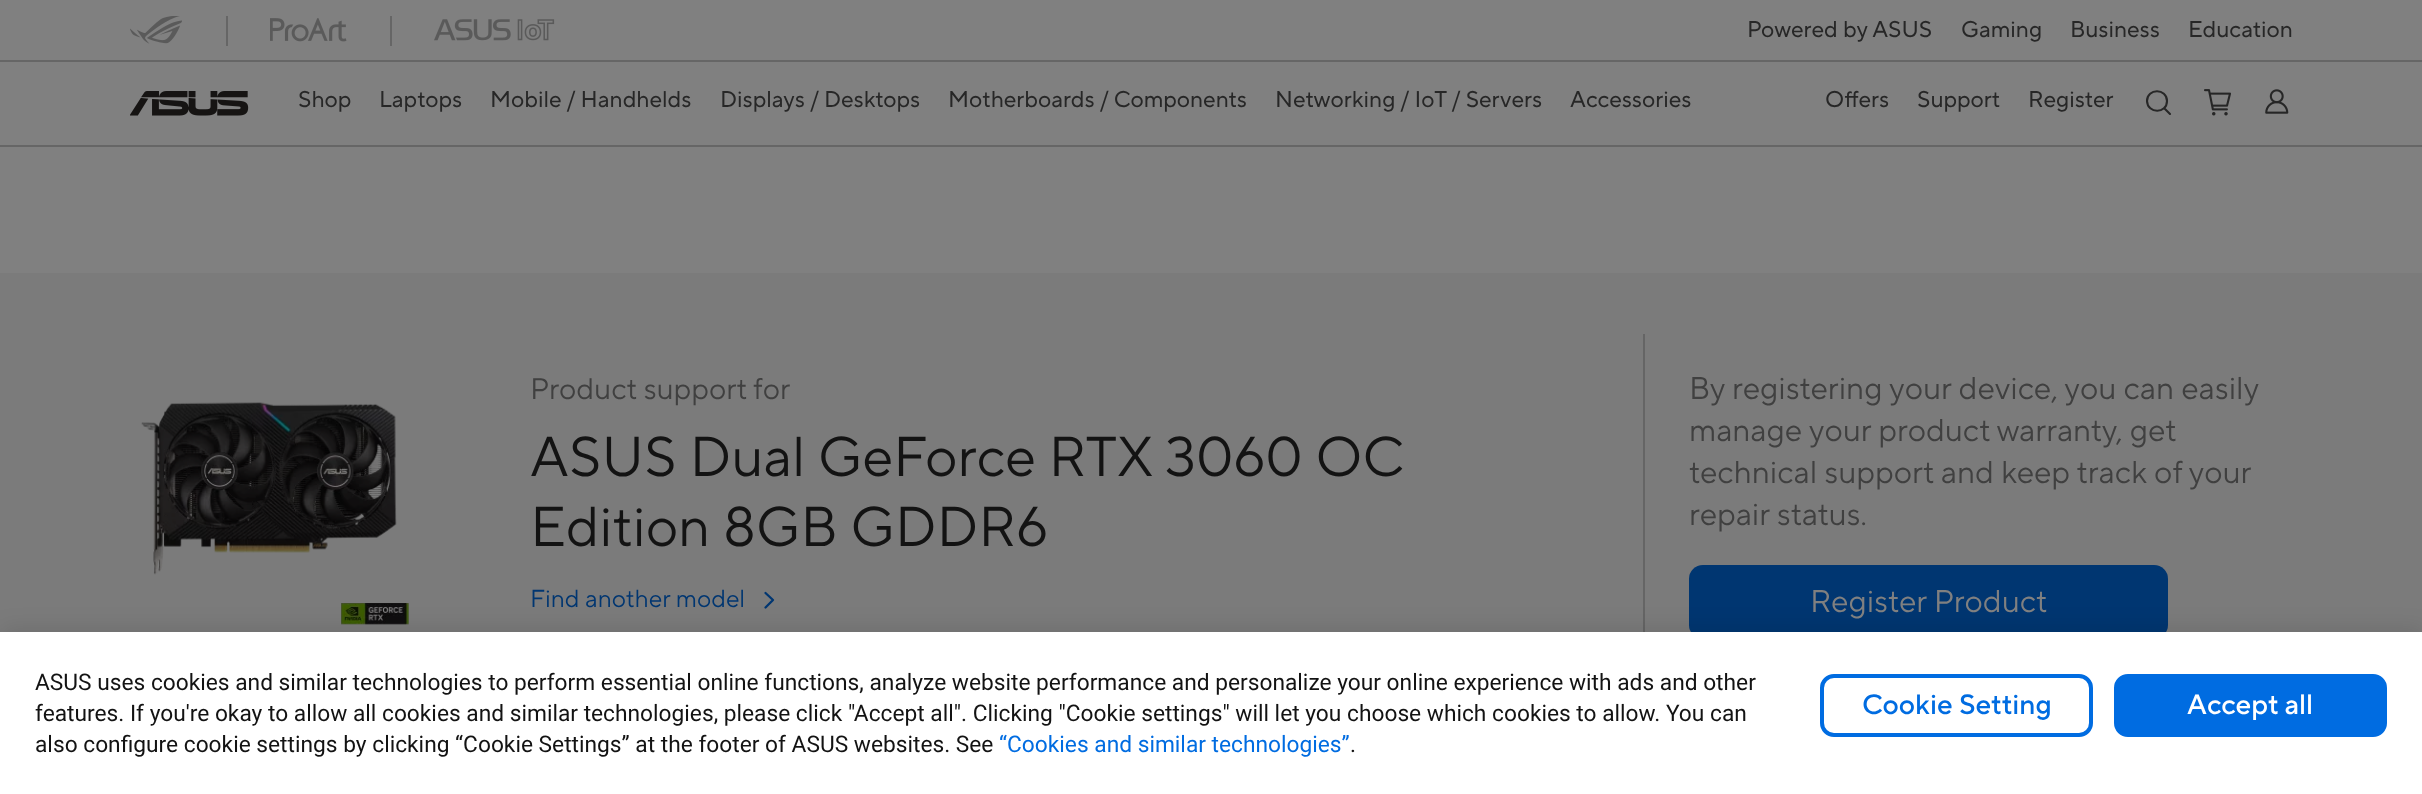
<svg xmlns="http://www.w3.org/2000/svg" xmlns:xlink="http://www.w3.org/1999/xlink" width="2422" height="794" viewBox="0 0 2422 794">
<style>
.cls-1{font:22.75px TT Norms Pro;fill:#272727}
.cls-2{font:29.75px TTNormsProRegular;fill:#404040}
.cls-3{font:56px TTNormsProRegular;fill:#131313}
.cls-4{font:24.5px TTNormsProRegular;fill:#003671}
.cls-5{font:31.5px TTNormsProRegular;fill:#404040}
.cls-6{font:31.5px TTNormsProRegular;fill:#808080}
.cls-7{font:22.75px Roboto;fill:#131313}
.cls-8{font:22.75px Roboto;fill:#006ce1}
.cls-9{font:500 28px TT Norms Pro;fill:#006ce1}
.cls-10{font:500 28px TT Norms Pro;fill:#ffffff}
</style>
<rect width="100%" height="100%" fill="#808080"/>
<rect fill="#666666" x="0" y="145" width="2422" height="2"/>
<rect fill="#666666" x="226" y="16" width="2" height="30"/>
<image xlink:href="image0.png" x="130" y="16" width="52" height="28"/>
<rect fill="#666666" x="390" y="16" width="2" height="30"/>
<image xlink:href="image1.png" x="270" y="18" width="77" height="24"/>
<image xlink:href="image2.png" x="434" y="19" width="121" height="22"/>
<rect fill="#666666" x="0" y="60" width="2422" height="2"/>
<image xlink:href="image3.png" x="130" y="91" width="119" height="25"/>
<path fill="none" stroke="#272727" stroke-width="2.1" stroke-linecap="round" d="M2164.5 108.5L2170 114M2167 101C2167 114 2147.5 114 2147 101C2147 88 2167 88 2167 101Z"/>
<image xlink:href="image4.png" x="2204" y="89" width="27" height="27"/>
<image xlink:href="image5.png" x="2265" y="89" width="24" height="25"/>
<rect fill="#7b7b7b" x="0" y="273" width="2422" height="359"/>
<image xlink:href="image6.png" x="141" y="402" width="268" height="223"/>
<path fill="none" stroke="#003671" stroke-width="2.3" stroke-linecap="round" stroke-linejoin="round" d="M765.5 593L773 600L765.5 607.5"/>
<rect fill="#656565" x="1643" y="334" width="2" height="305"/>
<rect fill="#003671" x="1689" y="565" width="479" height="74" rx="14"/>
<rect fill="#000000" fill-opacity="0.1" filter="blur(10.5px)" x="2" y="628" width="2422" height="163"/>
<rect fill="#ffffff" x="0" y="632" width="2422" height="162"/>
<rect fill="none" stroke="#006ce1" stroke-width="4" x="1822" y="676" width="269" height="59" rx="12"/>
<rect fill="#006ce1" stroke="#006ce1" stroke-width="4" x="2116" y="676" width="269" height="59" rx="12"/>
<text class="cls-1" x="1747" y="37">Powered by ASUS</text>
<text class="cls-1" x="1961" y="37">Gaming</text>
<text class="cls-1" x="2070" y="37">Business</text>
<text class="cls-1" x="2188" y="37">Education</text>
<text class="cls-1" x="298" y="107">Shop</text>
<text class="cls-1" x="379" y="107">Laptops</text>
<text class="cls-1" x="490" y="107">Mobile / Handhelds</text>
<text class="cls-1" x="720" y="107">Displays / Desktops</text>
<text class="cls-1" x="948" y="107">Motherboards / Components</text>
<text class="cls-1" x="1275" y="107">Networking / IoT / Servers</text>
<text class="cls-1" x="1570" y="107">Accessories</text>
<text class="cls-1" x="1825" y="107">Offers</text>
<text class="cls-1" x="1917" y="107">Support</text>
<text class="cls-1" x="2028" y="107">Register</text>
<text class="cls-2" x="530" y="399">Product support for</text>
<text class="cls-3"><tspan x="530" y="476">ASUS Dual GeForce RTX 3060 OC</tspan><tspan x="530" y="546">Edition 8GB GDDR6</tspan></text>
<text class="cls-4" x="530" y="607">Find another model</text>
<text class="cls-5"><tspan x="1689" y="399">By registering your device, you can easily</tspan><tspan x="1689" y="441">manage your product warranty, get</tspan><tspan x="1689" y="483">technical support and keep track of your</tspan><tspan x="1689" y="525">repair status.</tspan></text>
<text class="cls-6" x="1810" y="612">Register Product</text>
<text class="cls-7"><tspan x="35" y="690">ASUS uses cookies and similar technologies to perform essential online functions, analyze website performance and personalize your online experience with ads and other</tspan><tspan x="35" y="721">features. If you're okay to allow all cookies and similar technologies, please click "Accept all". Clicking "Cookie settings" will let you choose which cookies to allow. You can</tspan><tspan x="35" y="752">also configure cookie settings by clicking “Cookie Settings” at the footer of ASUS websites. See</tspan></text>
<text class="cls-8" x="999" y="752">“Cookies and similar technologies”</text>
<text class="cls-7" x="1350" y="752">.</text>
<text class="cls-9" x="1862" y="714">Cookie Setting</text>
<text class="cls-10" x="2187" y="714">Accept all</text>
</svg>
